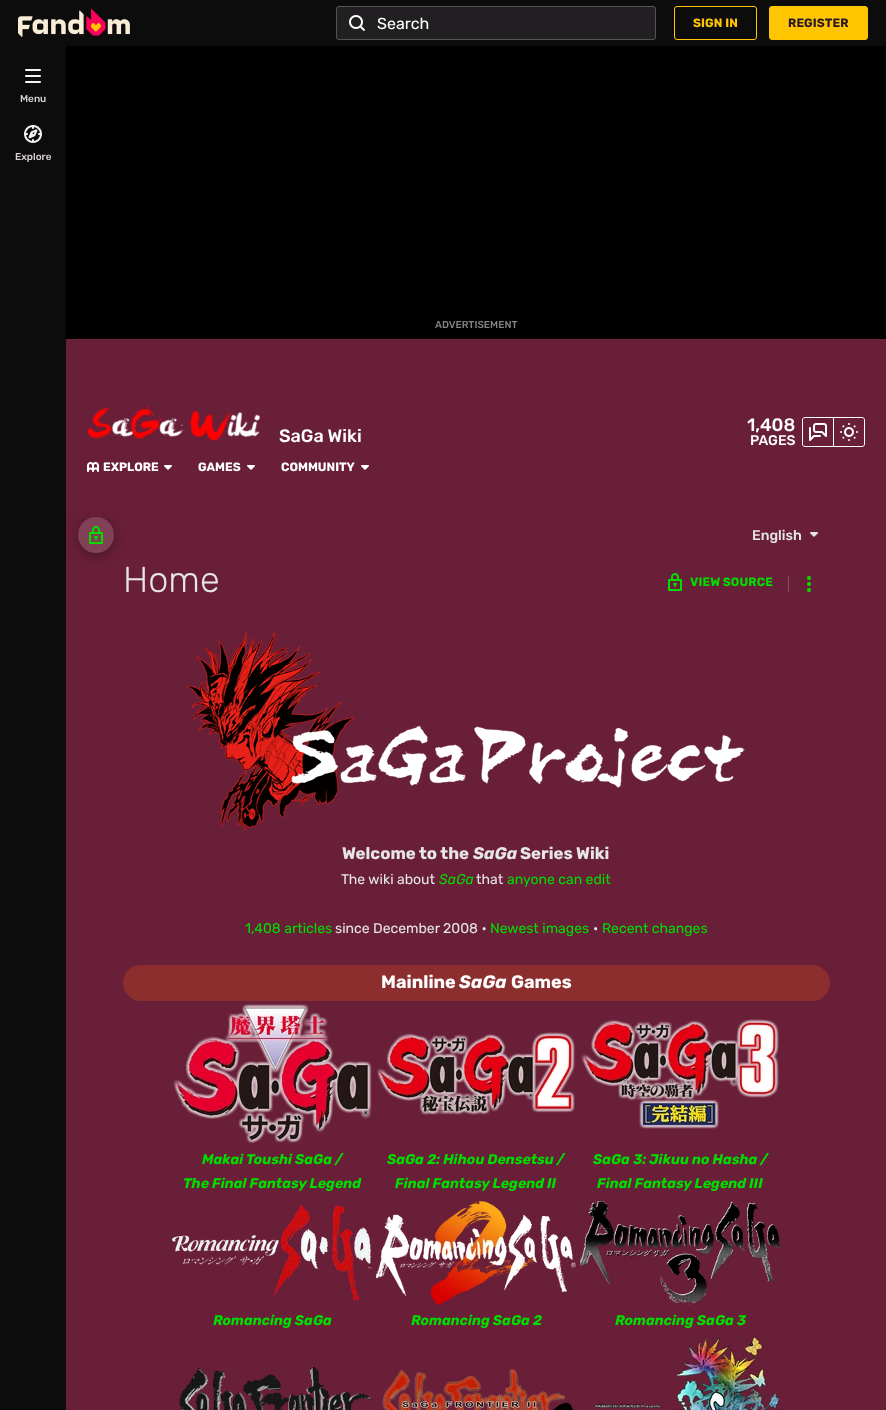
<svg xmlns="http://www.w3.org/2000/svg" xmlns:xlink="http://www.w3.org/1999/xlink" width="886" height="1410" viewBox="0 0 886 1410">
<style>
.cls-1{font:16px Rubik;fill:#ffffff}
.cls-2{font:bold 12px Rubik;letter-spacing:0.1px;fill:#ffc500}
.cls-3{font:bold 12px Rubik;letter-spacing:0.1px;fill:#291927}
.cls-4{font:500 10px Rubik;fill:#d6d0d5}
.cls-5{font:500 10px Rubik;fill:#838283}
.cls-6{font:500 18px Rubik;fill:#ffffff}
.cls-7{font:500 14px Rubik;fill:#ffffff}
.cls-8{font:bold 12px Rubik;fill:#ffffff}
.cls-9{font:500 14px Rubik;fill:#e6e6e6}
.cls-10{font:300 36px Rubik;fill:#e6e6e6}
.cls-11{font:bold 12px Rubik;letter-spacing:0.1px;fill:#00de00}
.cls-12{font:bold 16.75px Rubik;fill:#e6e6e6}
.cls-13{font:italic bold 16.75px Rubik;fill:#e6e6e6}
.cls-14{font:14px Rubik;fill:#e6e6e6}
.cls-15{font:italic 14px Rubik;fill:#00de00}
.cls-16{font:14px Rubik;fill:#00de00}
.cls-17{font:bold 18px Rubik;fill:#ffffff}
.cls-18{font:italic bold 18px Rubik;fill:#ffffff}
.cls-19{font:italic bold 14px Rubik;fill:#00de00}
</style>
<rect width="100%" height="100%" fill="#691f38"/>
<rect fill="#0c0c0c" x="0" y="0" width="886" height="46"/>
<image xlink:href="image0.png" x="18" y="9" width="112" height="28"/>
<rect fill="#211f21" x="336" y="6" width="320" height="34" rx="3"/>
<rect fill="none" stroke="#f5f3f5" stroke-opacity="0.25" x="336.5" y="6.5" width="319" height="33" rx="2.5"/>
<image xlink:href="image1.png" x="349" y="15" width="16" height="16"/>
<rect fill="none" stroke="#ffc500" x="674.5" y="6.5" width="82" height="33" rx="2.5"/>
<rect fill="#ffc500" stroke="#ffc500" x="769.5" y="6.5" width="98" height="33" rx="2.5"/>
<rect fill="#000000" fill-opacity="0.3" filter="blur(6px)" x="78" y="520" width="36" height="36" rx="18"/>
<rect fill="#0c0c0c" x="0" y="46" width="66" height="1364"/>
<image xlink:href="image2.png" x="25" y="69" width="16" height="14"/>
<image xlink:href="image3.png" x="24" y="125" width="18" height="18"/>
<rect fill="#000000" x="66" y="46" width="820" height="293"/>
<image xlink:href="image4.png" x="87" y="406" width="173" height="35"/>
<path fill="none" stroke="#ffffff" d="M805 417.5H833.5V446.5H805C803.5 446.5 802.5 445.5 802.5 444V420C802.5 418.5 803.5 417.5 805 417.5Z"/>
<image xlink:href="image5.png" x="809" y="423" width="18" height="18"/>
<path fill="none" stroke="#ffffff" d="M833.5 417.5H862C863.5 417.5 864.5 418.5 864.5 420V444C864.5 445.5 863.5 446.5 862 446.5H833.5Z"/>
<image xlink:href="image6.png" x="840" y="423" width="18" height="18"/>
<image xlink:href="image7.png" x="87" y="462" width="12" height="10"/>
<image xlink:href="image8.png" x="164" y="465" width="8" height="5"/>
<image xlink:href="image8.png" x="247" y="465" width="8" height="5"/>
<image xlink:href="image8.png" x="361" y="465" width="8" height="5"/>
<circle fill="#804156" cx="96" cy="535" r="18"/>
<image xlink:href="image9.png" x="89" y="526" width="14" height="18"/>
<image xlink:href="image10.png" x="810" y="532" width="8" height="5"/>
<image xlink:href="image11.png" x="668" y="573" width="14" height="18"/>
<rect fill="#885164" x="788" y="576" width="1" height="16"/>
<image xlink:href="image12.png" x="807" y="576" width="4" height="16"/>
<image xlink:href="image13.png" x="187" y="632" width="558" height="198"/>
<rect fill="#8c2e2e" x="123" y="965" width="707" height="36" rx="18"/>
<image xlink:href="image14.png" x="173" y="1004" width="199" height="140"/>
<image xlink:href="image15.png" x="377" y="1032" width="198" height="83"/>
<image xlink:href="image16.png" x="581" y="1019" width="198" height="110"/>
<image xlink:href="image17.png" x="172" y="1205" width="200" height="95"/>
<image xlink:href="image18.png" x="376" y="1201" width="200" height="104"/>
<image xlink:href="image19.png" x="580" y="1201" width="200" height="104"/>
<image xlink:href="image20.png" x="179" y="1367" width="193" height="43"/>
<image xlink:href="image21.png" x="382" y="1369" width="192" height="41"/>
<image xlink:href="image22.png" x="594" y="1337" width="186" height="73"/>
<text class="cls-1" x="377" y="29">Search</text>
<text class="cls-2" x="693" y="27">SIGN IN</text>
<text class="cls-3" x="788" y="27">REGISTER</text>
<text class="cls-4" x="20" y="102">Menu</text>
<text class="cls-4" x="15" y="160">Explore</text>
<text class="cls-5" x="435" y="328">ADVERTISEMENT</text>
<text class="cls-6" x="279" y="442">SaGa Wiki</text>
<text class="cls-6" x="747" y="431">1,408</text>
<text class="cls-7" x="750" y="445">PAGES</text>
<text class="cls-8" x="103" y="471">EXPLORE</text>
<text class="cls-8" x="198" y="471">GAMES</text>
<text class="cls-8" x="281" y="471">COMMUNITY</text>
<text class="cls-9" x="752" y="540">English</text>
<text class="cls-10" x="123" y="592">Home</text>
<text class="cls-11" x="690" y="586">VIEW SOURCE</text>
<text class="cls-12" x="342" y="859">Welcome to the</text>
<text class="cls-13" x="473" y="859">SaGa</text>
<text class="cls-12" x="520" y="859">Series Wiki</text>
<text class="cls-14" x="341" y="884">The wiki about</text>
<text class="cls-15" x="439" y="884">SaGa</text>
<text class="cls-14" x="476" y="884">that</text>
<text class="cls-16" x="507" y="884">anyone can edit</text>
<text class="cls-16" x="245" y="933">1,408 articles</text>
<text class="cls-14" x="335" y="933">since December 2008 •</text>
<text class="cls-16" x="490" y="933">Newest images</text>
<text class="cls-14" x="593" y="933">•</text>
<text class="cls-16" x="602" y="933">Recent changes</text>
<text class="cls-17" x="381" y="988">Mainline</text>
<text class="cls-18" x="459" y="988">SaGa</text>
<text class="cls-17" x="511" y="988">Games</text>
<text class="cls-19" x="202" y="1164">Makai Toushi SaGa /</text>
<text class="cls-19" x="183" y="1188">The Final Fantasy Legend</text>
<text class="cls-19" x="387" y="1164">SaGa 2: Hihou Densetsu /</text>
<text class="cls-19" x="395" y="1188">Final Fantasy Legend II</text>
<text class="cls-19" x="593" y="1164">SaGa 3: Jikuu no Hasha /</text>
<text class="cls-19" x="597" y="1188">Final Fantasy Legend III</text>
<text class="cls-19" x="213" y="1325">Romancing SaGa</text>
<text class="cls-19" x="411" y="1325">Romancing SaGa 2</text>
<text class="cls-19" x="615" y="1325">Romancing SaGa 3</text>
</svg>
